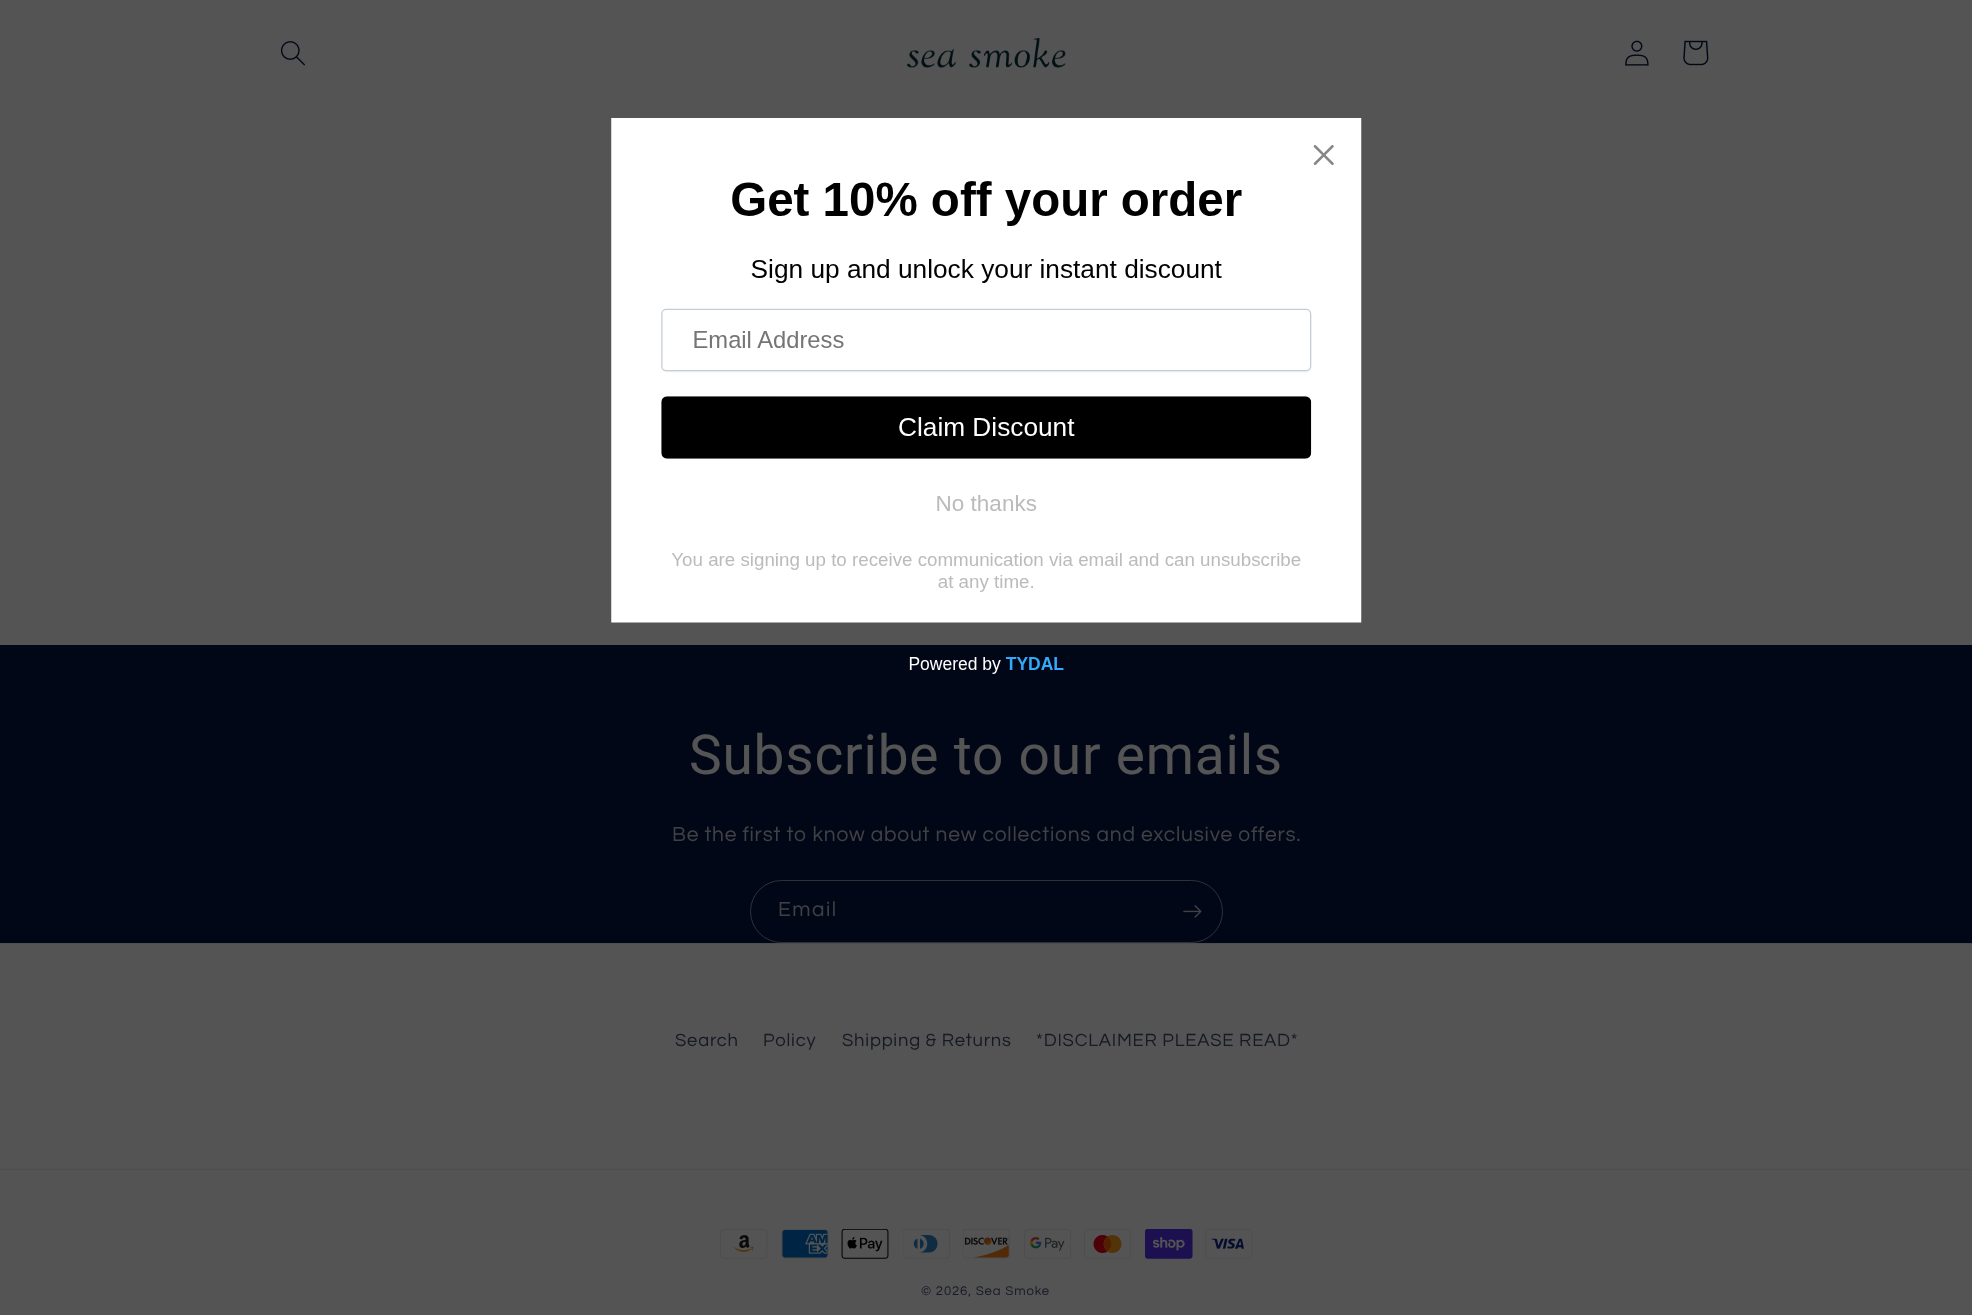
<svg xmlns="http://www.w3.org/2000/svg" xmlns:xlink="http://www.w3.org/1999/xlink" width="1972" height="1315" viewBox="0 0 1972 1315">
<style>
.cls-1{font:55px Roboto;letter-spacing:0.8px;fill:#ffffff}
.cls-2{font:21px Questrial;letter-spacing:0.8px;fill:#c1c5d0}
.cls-3{font:21px Questrial;letter-spacing:1.5px;fill:#c1c5d0}
.cls-4{font:18.4px Questrial;letter-spacing:0.8px;fill:#445072}
.cls-5{font:13.1px Questrial;letter-spacing:0.9px;fill:#445072}
</style>
<rect width="100%" height="100%" fill="#ffffff"/>
<image xlink:href="image1.png" x="280" y="41" width="25" height="25"/>
<image xlink:href="image2.png" x="907" y="38" width="159" height="30"/>
<image xlink:href="image3.png" x="1625" y="40" width="24" height="26"/>
<image xlink:href="image4.png" x="1683" y="40" width="26" height="26"/>
<rect fill="#051643" x="0" y="645" width="1972" height="298"/>
<rect fill="none" stroke="#8f96aa" x="750.5" y="880.5" width="472" height="62" rx="31"/>
<image xlink:href="image5.png" x="1183" y="905" width="19" height="13"/>
<rect fill="#ebecf0" x="0" y="943" width="1972" height="1"/>
<rect fill="#ebecf0" x="0" y="1169" width="1972" height="1"/>
<image xlink:href="image6.png" x="720" y="1229" width="48" height="30"/>
<image xlink:href="image7.png" x="781" y="1229" width="48" height="30"/>
<image xlink:href="image8.png" x="841" y="1229" width="48" height="30"/>
<image xlink:href="image9.png" x="903" y="1229" width="47" height="30"/>
<image xlink:href="image10.png" x="963" y="1229" width="47" height="30"/>
<image xlink:href="image11.png" x="1024" y="1229" width="47" height="30"/>
<image xlink:href="image12.png" x="1084" y="1229" width="47" height="30"/>
<image xlink:href="image13.png" x="1145" y="1229" width="48" height="30"/>
<image xlink:href="image14.png" x="1205" y="1229" width="48" height="30"/>
<text class="cls-1" x="689" y="774">Subscribe to our emails</text>
<text class="cls-2" x="672" y="841">Be the first to know about new collections and exclusive offers.</text>
<text class="cls-3" x="778" y="916">Email</text>
<text class="cls-4" x="675" y="1046">Search</text>
<text class="cls-4" x="763" y="1046">Policy</text>
<text class="cls-4" x="842" y="1046">Shipping &amp; Returns</text>
<text class="cls-4" x="1036" y="1046">*DISCLAIMER PLEASE READ*</text>
<text class="cls-5" x="921" y="1295">© 2026, Sea Smoke</text>
<image xlink:href="image0.png" x="0" y="0" width="1972" height="1315"/>
</svg>
